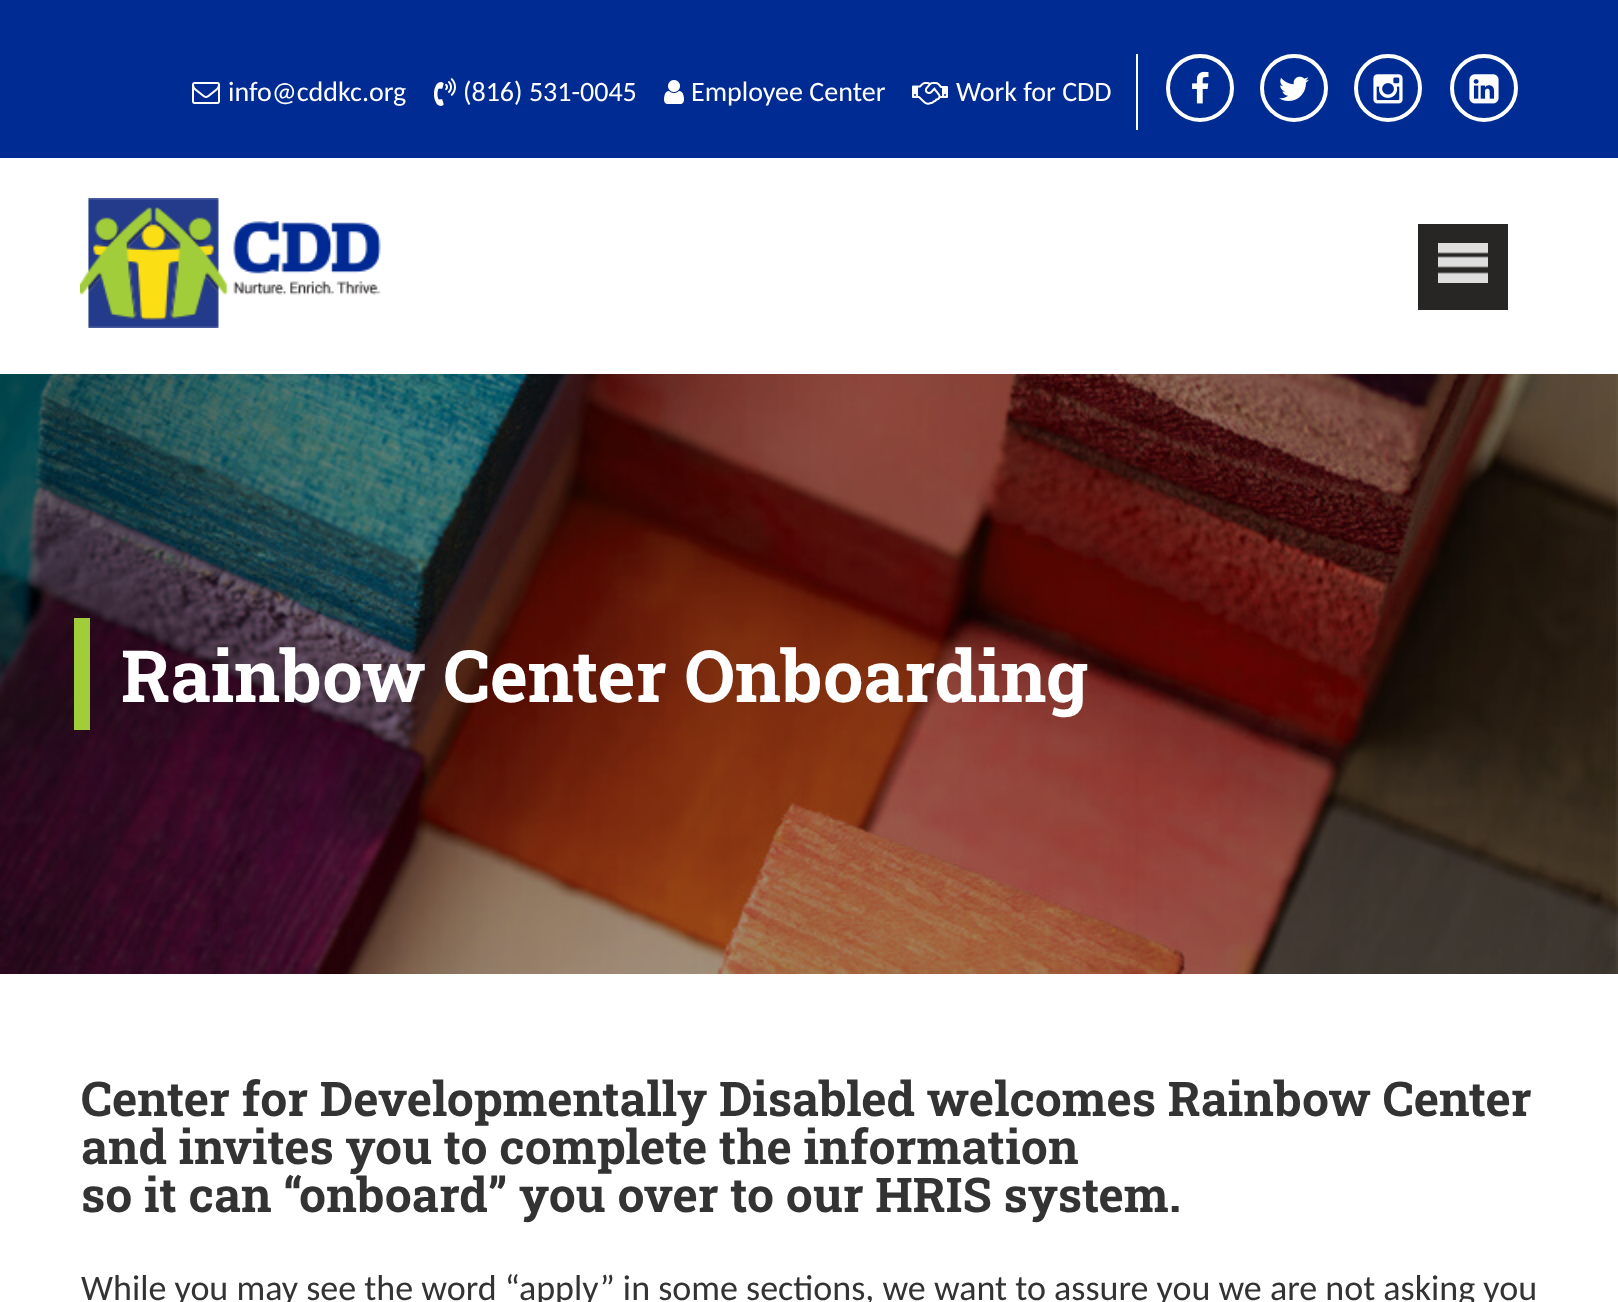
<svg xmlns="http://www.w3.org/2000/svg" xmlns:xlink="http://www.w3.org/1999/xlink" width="1618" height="1302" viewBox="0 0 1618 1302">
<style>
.cls-1{font:28px Carlito;fill:#ffffff}
.cls-2{font:bold 72px Roboto Slab;fill:#ffffff}
.cls-3{font:bold 48px Roboto Slab;fill:#333333}
.cls-4{font:36px Carlito;fill:#333333}
</style>
<rect width="100%" height="100%" fill="#ffffff"/>
<rect fill="#002b93" x="0" y="0" width="1618" height="158"/>
<image xlink:href="image0.png" x="192" y="82" width="28" height="22"/>
<image xlink:href="image1.png" x="434" y="78" width="22" height="28"/>
<image xlink:href="image2.png" x="664" y="80" width="20" height="24"/>
<image xlink:href="image3.png" x="912" y="82" width="36" height="23"/>
<rect fill="#ffffff" x="1136" y="54" width="2" height="76"/>
<circle fill="none" stroke="#ffffff" stroke-width="4" cx="1200" cy="88" r="32"/>
<image xlink:href="image4.png" x="1192" y="71" width="17" height="33"/>
<circle fill="none" stroke="#ffffff" stroke-width="4" cx="1294" cy="88" r="32"/>
<image xlink:href="image5.png" x="1279" y="76" width="30" height="25"/>
<circle fill="none" stroke="#ffffff" stroke-width="4" cx="1388" cy="88" r="32"/>
<image xlink:href="image6.png" x="1373" y="74" width="30" height="30"/>
<circle fill="none" stroke="#ffffff" stroke-width="4" cx="1484" cy="88" r="32"/>
<image xlink:href="image7.png" x="1469" y="74" width="30" height="30"/>
<image xlink:href="image8.png" x="80" y="198" width="301" height="130"/>
<rect fill="#272624" x="1418" y="224" width="90" height="86"/>
<image xlink:href="image9.png" x="1438" y="243" width="50" height="40"/>
<image xlink:href="image10.png" x="0" y="374" width="1618" height="600"/>
<rect fill="#a2cd3a" x="74" y="618" width="16" height="112"/>
<text class="cls-1" x="228" y="101">info@cddkc.org</text>
<text class="cls-1" x="463" y="101">(816) 531-0045</text>
<text class="cls-1" x="691" y="101">Employee Center</text>
<text class="cls-1" x="956" y="101">Work for CDD</text>
<text class="cls-2" x="121" y="702">Rainbow Center Onboarding</text>
<text class="cls-3"><tspan x="81" y="1116">Center for Developmentally Disabled welcomes Rainbow Center</tspan><tspan x="81" y="1164">and invites you to complete the information</tspan><tspan x="81" y="1212">so it can “onboard” you over to our HRIS system.</tspan></text>
<text class="cls-4" x="81" y="1300">While you may see the word “apply” in some sections, we want to assure you we are not asking you</text>
</svg>
